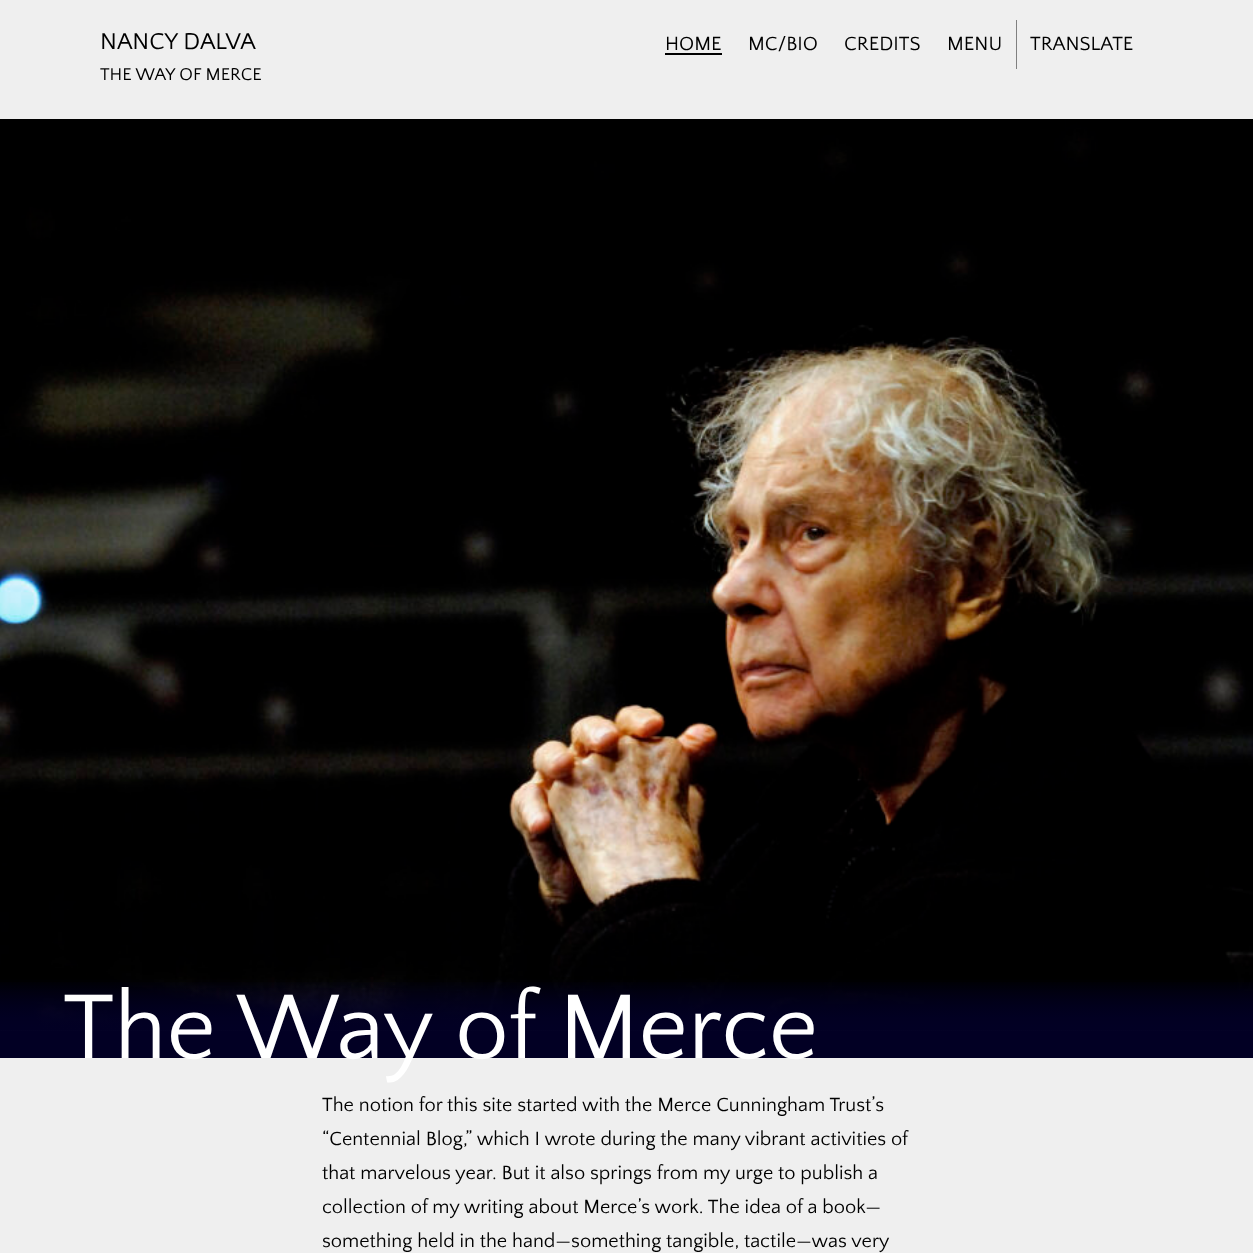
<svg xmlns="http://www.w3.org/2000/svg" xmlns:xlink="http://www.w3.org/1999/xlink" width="1253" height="1253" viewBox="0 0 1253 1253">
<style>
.cls-1{font:24px Quattrocento Sans;fill:#000000}
.cls-2{font:18px Quattrocento Sans;fill:#000000}
.cls-3{font:20px Quattrocento Sans;fill:#000000}
.cls-4{font:96px Quattrocento Sans;fill:#ffffff}
</style>
<defs>
<linearGradient id="g1" gradientUnits="userSpaceOnUse" x1="627" y1="1058" x2="627" y2="978"><stop offset="0.34" stop-color="#020024"/><stop offset="1" stop-color="#020024" stop-opacity="0"/></linearGradient>
</defs>
<rect width="100%" height="100%" fill="#efefef"/>
<rect fill="#000000" x="665" y="53" width="57" height="2"/>
<rect fill="#808080" x="1016" y="20" width="1" height="49"/>
<image xlink:href="image0.png" x="0" y="119" width="1253" height="911"/>
<rect fill="url(#g1)" x="0" y="982" width="1253" height="76"/>
<text class="cls-1" x="100" y="49">NANCY DALVA</text>
<text class="cls-2" x="100" y="80">THE WAY OF MERCE</text>
<text class="cls-3" x="665" y="50">HOME</text>
<text class="cls-3" x="748" y="50">MC/BIO</text>
<text class="cls-3" x="844" y="50">CREDITS</text>
<text class="cls-3" x="947" y="50">MENU</text>
<text class="cls-3" x="1030" y="50">TRANSLATE</text>
<text class="cls-4" x="63" y="1058">The Way of Merce</text>
<text class="cls-3"><tspan x="322" y="1111">The notion for this site started with the Merce Cunningham Trust’s</tspan><tspan x="322" y="1145">“Centennial Blog,” which I wrote during the many vibrant activities of</tspan><tspan x="322" y="1179">that marvelous year. But it also springs from my urge to publish a</tspan><tspan x="322" y="1213">collection of my writing about Merce’s work. The idea of a book—</tspan><tspan x="322" y="1247">something held in the hand—something tangible, tactile—was very</tspan></text>
</svg>
